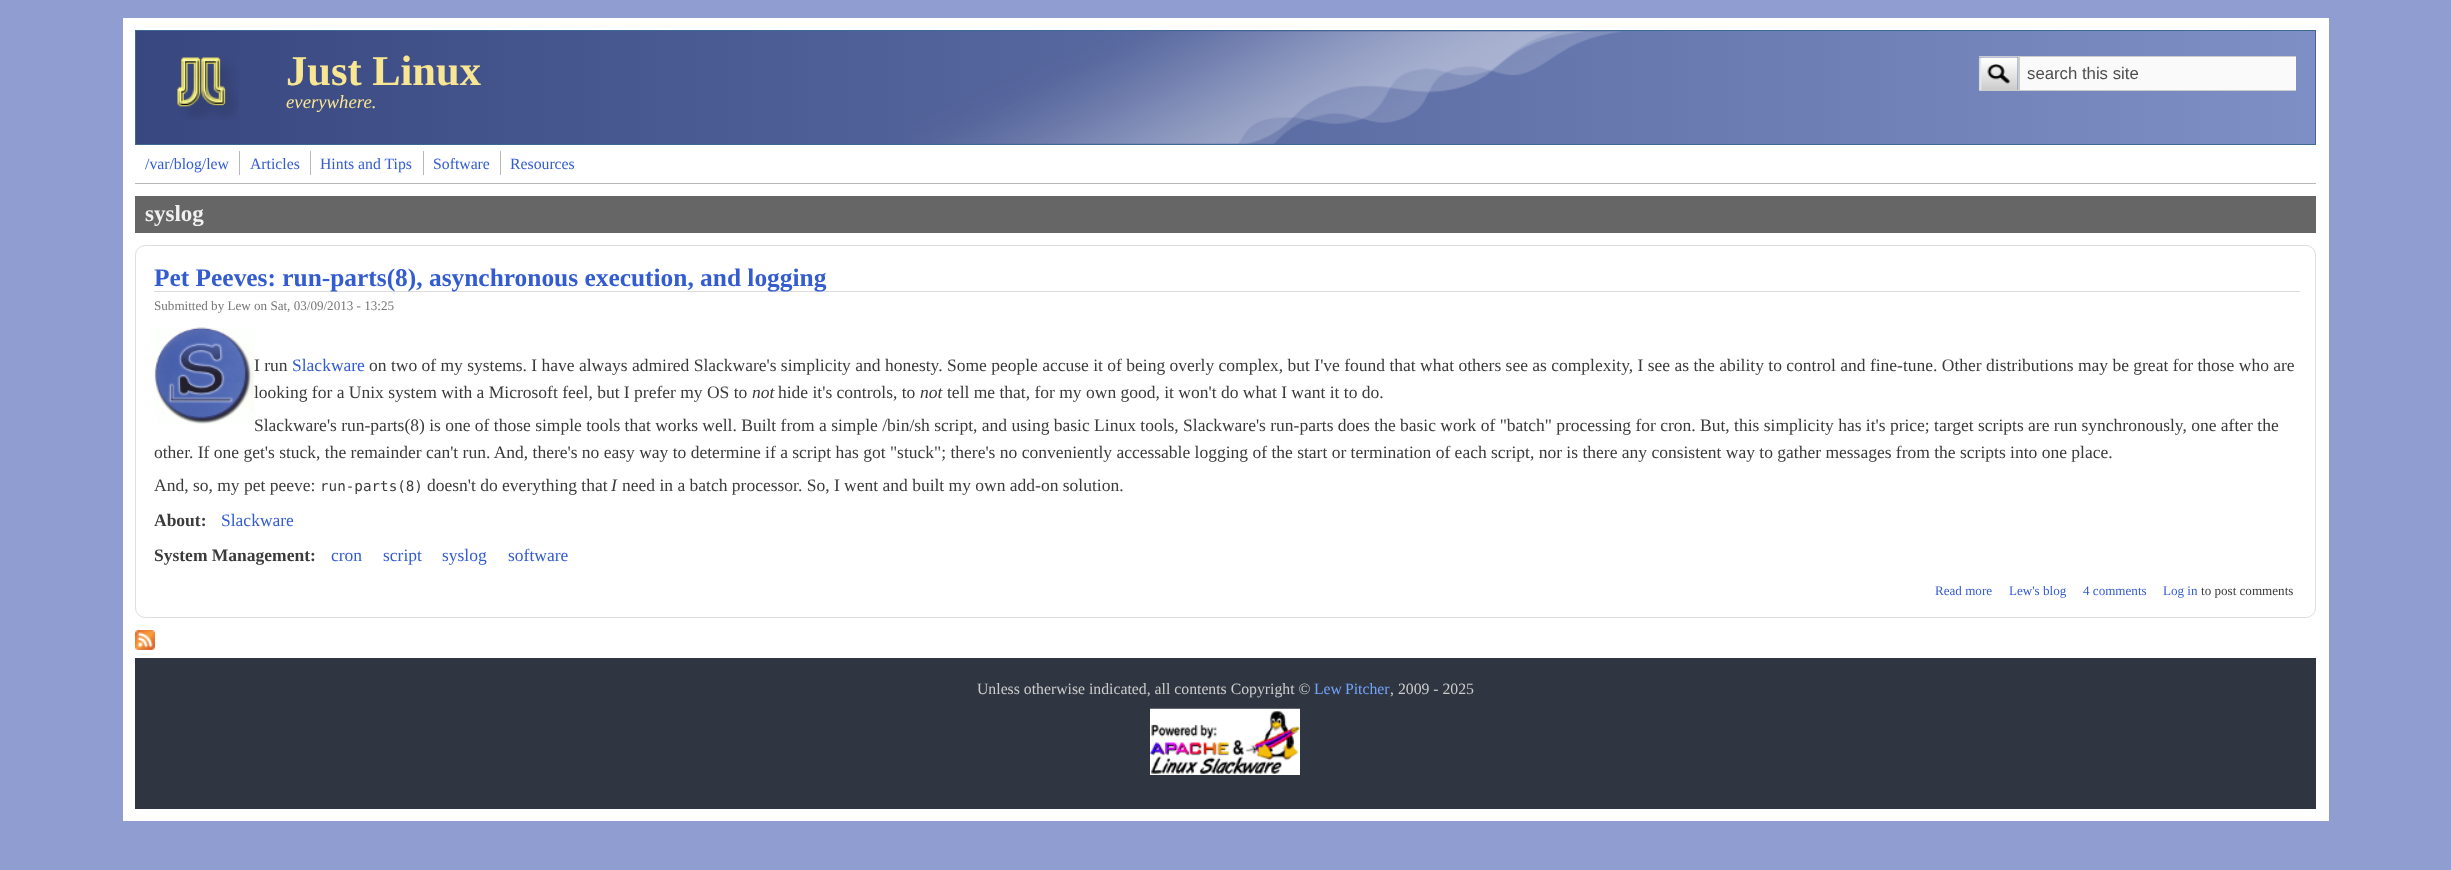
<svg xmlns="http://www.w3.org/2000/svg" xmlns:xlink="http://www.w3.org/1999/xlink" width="2451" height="870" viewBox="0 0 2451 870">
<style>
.cls-1{font:bold 42.5px Liberation Serif;fill:#f9e692}
.cls-2{font:italic 18.75px Liberation Serif;fill:#f9e692}
.cls-3{font:16.75px Liberation Sans;fill:#4e4e4e}
.cls-4{font:15.75px Liberation Serif;fill:#335cd1}
.cls-5{font:bold 23px Liberation Serif;fill:#f1f1f1}
.cls-6{font:bold 25.4px Liberation Serif;fill:#335cd1}
.cls-7{font:13.1px Liberation Serif;fill:#777777}
.cls-8{font:17.5px Liberation Serif;fill:#3b3b3b}
.cls-9{font:17.5px Liberation Serif;fill:#335cd1}
.cls-10{font:italic 17.5px Liberation Serif;fill:#3b3b3b}
.cls-11{font:14.25px DejaVu Sans Mono;fill:#3b3b3b}
.cls-12{font:bold 17.5px Liberation Serif;fill:#3b3b3b}
.cls-13{font:13.1px Liberation Serif;fill:#335cd1}
.cls-14{font:13.1px Liberation Serif;fill:#3b3b3b}
.cls-15{font:15.75px Liberation Serif;fill:#cccccc}
.cls-16{font:15.75px Liberation Serif;fill:#72a4fd}
</style>
<defs>
<linearGradient id="g1" gradientUnits="userSpaceOnUse" x1="136" y1="31" x2="2315" y2="31"><stop offset="0" stop-color="#384780"/><stop offset="1" stop-color="#7d8fc5"/></linearGradient>
</defs>
<rect width="100%" height="100%" fill="#909dd0"/>
<rect fill="#ffffff" x="123" y="18" width="2206" height="803"/>
<rect fill="url(#g1)" x="136" y="31" width="2179" height="113"/>
<rect fill="none" stroke="#3e6993" x="135.5" y="30.5" width="2180" height="114"/>
<image xlink:href="image0.png" x="912" y="31" width="709" height="113"/>
<image xlink:href="image1.png" x="177" y="57" width="62" height="63"/>
<rect fill="#cccccc" x="1979" y="56" width="317" height="1"/>
<rect fill="#cccccc" x="2019" y="90" width="277" height="1"/>
<rect fill="#cccccc" x="2018" y="56" width="2" height="35"/>
<rect fill="#cccccc" x="1979" y="90" width="40" height="1"/>
<image xlink:href="image2.png" x="1978" y="57" width="40" height="33"/>
<rect fill="#fafafa" x="2020" y="57" width="276" height="33"/>
<rect fill="#b8b8b8" x="135" y="183" width="2181" height="1"/>
<rect fill="#b8b8b8" x="239" y="151" width="1" height="24"/>
<rect fill="#b8b8b8" x="310" y="151" width="1" height="24"/>
<rect fill="#b8b8b8" x="423" y="151" width="1" height="24"/>
<rect fill="#b8b8b8" x="500" y="151" width="1" height="24"/>
<rect fill="#666666" x="135" y="196" width="2181" height="37"/>
<rect fill="none" stroke="#dedede" x="135.5" y="245.5" width="2180" height="372" rx="9.5"/>
<rect fill="#dcdcdc" x="154" y="291" width="2146" height="1"/>
<image xlink:href="image3.png" x="154" y="327" width="100" height="97"/>
<image xlink:href="image4.png" x="135" y="630" width="20" height="20"/>
<rect fill="#303641" x="135" y="658" width="2181" height="151"/>
<image xlink:href="image5.png" x="1150" y="708" width="150" height="67"/>
<text class="cls-1" x="286" y="85">Just Linux</text>
<text class="cls-2" x="286" y="108">everywhere.</text>
<text class="cls-3" x="2027" y="79">search this site</text>
<text class="cls-4" x="145" y="169">/var/blog/lew</text>
<text class="cls-4" x="250" y="169">Articles</text>
<text class="cls-4" x="320" y="169">Hints and Tips</text>
<text class="cls-4" x="433" y="169">Software</text>
<text class="cls-4" x="510" y="169">Resources</text>
<text class="cls-5" x="145" y="221">syslog</text>
<text class="cls-6" x="154" y="286">Pet Peeves: run-parts(8), asynchronous execution, and logging</text>
<text class="cls-7" x="154" y="310">Submitted by Lew on Sat, 03/09/2013 - 13:25</text>
<text class="cls-8" x="254" y="371">I run</text>
<text class="cls-9" x="292" y="371">Slackware</text>
<text class="cls-8" x="369" y="371">on two of my systems. I have always admired Slackware's simplicity and honesty. Some people accuse it of being overly complex, but I've found that what others see as complexity, I see as the ability to control and fine-tune. Other distributions may be great for those who are</text>
<text class="cls-8" x="254" y="398">looking for a Unix system with a Microsoft feel, but I prefer my OS to</text>
<text class="cls-10" x="752" y="398">not</text>
<text class="cls-8" x="778" y="398">hide it's controls, to</text>
<text class="cls-10" x="920" y="398">not</text>
<text class="cls-8" x="947" y="398">tell me that, for my own good, it won't do what I want it to do.</text>
<text class="cls-8" x="254" y="431">Slackware's run-parts(8) is one of those simple tools that works well. Built from a simple /bin/sh script, and using basic Linux tools, Slackware's run-parts does the basic work of "batch" processing for cron. But, this simplicity has it's price; target scripts are run synchronously, one after the</text>
<text class="cls-8"><tspan x="154" y="458">other. If one get's stuck, the remainder can't run. And, there's no easy way to determine if a script has got "stuck"; there's no conveniently accessable logging of the start or termination of each script, nor is there any consistent way to gather messages from the scripts into one place.</tspan><tspan x="154" y="491">And, so, my pet peeve:</tspan></text>
<text class="cls-11" x="320" y="491">run-parts(8)</text>
<text class="cls-8" x="427" y="491">doesn't do everything that</text>
<text class="cls-10" x="611" y="491">I</text>
<text class="cls-8" x="622" y="491">need in a batch processor. So, I went and built my own add-on solution.</text>
<text class="cls-12" x="154" y="526">About:</text>
<text class="cls-9" x="221" y="526">Slackware</text>
<text class="cls-12" x="154" y="561">System Management:</text>
<text class="cls-9" x="331" y="561">cron</text>
<text class="cls-9" x="383" y="561">script</text>
<text class="cls-9" x="442" y="561">syslog</text>
<text class="cls-9" x="508" y="561">software</text>
<text class="cls-13" x="1935" y="595">Read more</text>
<text class="cls-13" x="2009" y="595">Lew's blog</text>
<text class="cls-13" x="2083" y="595">4 comments</text>
<text class="cls-13" x="2163" y="595">Log in</text>
<text class="cls-14" x="2201" y="595">to post comments</text>
<text class="cls-15" x="977" y="694">Unless otherwise indicated, all contents Copyright ©</text>
<text class="cls-16" x="1314" y="694" word-spacing="-1">Lew Pitcher</text>
<text class="cls-15" x="1390" y="694">, 2009 - 2025</text>
</svg>
